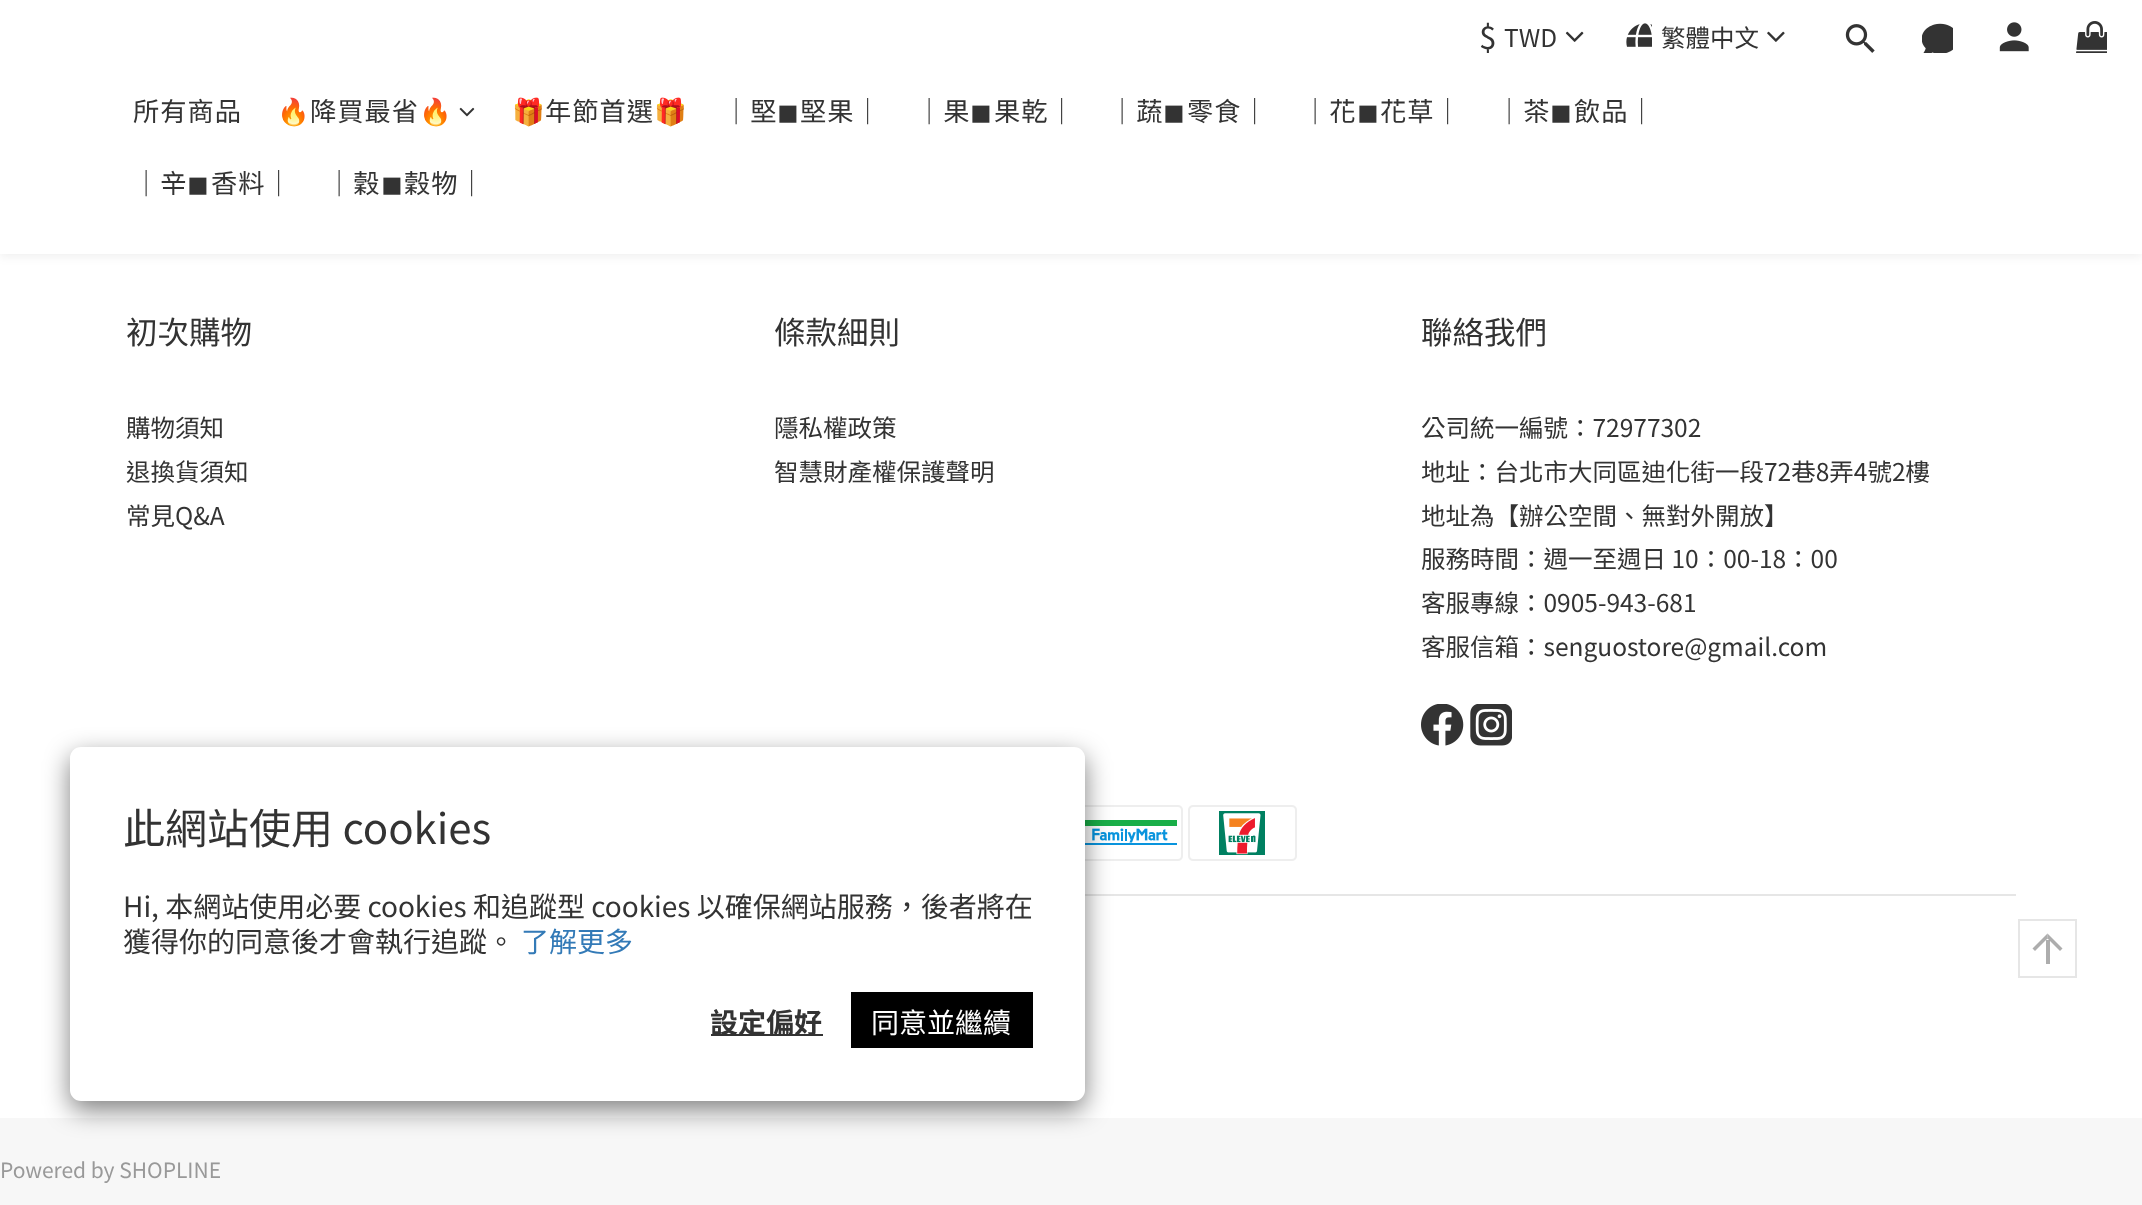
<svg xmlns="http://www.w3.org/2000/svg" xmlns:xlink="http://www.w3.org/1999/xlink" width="2142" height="1205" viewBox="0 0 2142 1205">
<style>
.cls-1{font:31.5px Noto Sans TC;letter-spacing:2px;fill:#333333}
.cls-2{font:24.5px Noto Sans TC;fill:#333333}
.cls-3{font:26.25px Noto Sans TC;letter-spacing:1px;fill:#333333}
.cls-4{font:26.25px Noto Color Emoji;letter-spacing:1px;fill:#333333}
.cls-5{font:26.25px DejaVu Sans;letter-spacing:1px;fill:#333333}
.cls-6{font:31.5px Noto Sans TC;fill:#333333}
.cls-7{font:21px Noto Sans TC;fill:#999999}
.cls-8{font:42px Noto Sans TC;fill:#333333}
.cls-9{font:28px Noto Sans TC;fill:#333333}
.cls-10{font:28px Noto Sans TC;fill:#337ab7}
.cls-11{font:bold 28px Noto Sans TC;fill:#333333}
.cls-12{font:28px Noto Sans TC;fill:#ffffff}
</style>
<rect width="100%" height="100%" fill="#ffffff"/>
<rect fill="#000000" fill-opacity="0.06" filter="blur(5px)" x="0" y="4" width="2142" height="253"/>
<rect fill="#ffffff" x="0" y="0" width="2142" height="254"/>
<image xlink:href="image0.png" x="1565" y="31" width="19" height="11"/>
<image xlink:href="image1.png" x="1626" y="23" width="26" height="24"/>
<image xlink:href="image2.png" x="1767" y="31" width="18" height="11"/>
<image xlink:href="image3.png" x="1845" y="24" width="30" height="29"/>
<image xlink:href="image4.png" x="1922" y="23" width="31" height="30"/>
<image xlink:href="image5.png" x="1999" y="22" width="30" height="30"/>
<image xlink:href="image6.png" x="2076" y="21" width="31" height="32"/>
<image xlink:href="image7.png" x="459" y="107" width="16" height="10"/>
<image xlink:href="image8.png" x="1421" y="704" width="43" height="42"/>
<image xlink:href="image9.png" x="1470" y="704" width="42" height="42"/>
<image xlink:href="image10.png" x="1085" y="805" width="98" height="56"/>
<image xlink:href="image11.png" x="1188" y="805" width="109" height="56"/>
<rect fill="#e6e6e6" x="1085" y="894" width="931" height="2"/>
<rect fill="#f7f7f7" x="0" y="1118" width="2142" height="87"/>
<rect fill="#000000" fill-opacity="0.5" filter="blur(13px)" x="70" y="756" width="1015" height="354" rx="11"/>
<rect fill="#ffffff" x="70" y="747" width="1015" height="354" rx="11"/>
<rect fill="#333333" x="711" y="1034" width="112" height="2"/>
<rect fill="#000000" x="851" y="992" width="182" height="56"/>
<rect fill="none" stroke="#e6e6e6" stroke-width="2" x="2019" y="920" width="57" height="57"/>
<path fill="#adadad" d="M2047.5 933.5L2062.5 948.5L2060 951L2047.5 938.5Z"/>
<path fill="#999999" fill-opacity="0.8" d="M2032.5 948.5L2047.5 933.5V938.5L2035 951Z"/>
<rect fill="#999999" fill-opacity="0.8" x="2046" y="940" width="4" height="24"/>
<text class="cls-1" x="1479" y="49">$</text>
<text class="cls-2" x="1504" y="47">TWD</text>
<text class="cls-2" x="1661" y="47">繁體中文</text>
<text class="cls-3" x="133" y="121">所有商品</text>
<text class="cls-4" x="277" y="121">🔥</text>
<text class="cls-3" x="310" y="121">降買最省</text>
<text class="cls-4" x="419" y="121">🔥</text>
<text class="cls-4" x="512" y="121">🎁</text>
<text class="cls-3" x="545" y="121">年節首選</text>
<text class="cls-4" x="654" y="121">🎁</text>
<text class="cls-3" x="723" y="121">｜堅</text>
<text class="cls-5" x="777" y="121">◼︎</text>
<text class="cls-3" x="800" y="121">堅果｜</text>
<text class="cls-3" x="916" y="121">｜果</text>
<text class="cls-5" x="970" y="121">◼︎</text>
<text class="cls-3" x="994" y="121">果乾｜</text>
<text class="cls-3" x="1109" y="121">｜蔬</text>
<text class="cls-5" x="1163" y="121">◼︎</text>
<text class="cls-3" x="1187" y="121">零食｜</text>
<text class="cls-3" x="1302" y="121">｜花</text>
<text class="cls-5" x="1357" y="121">◼︎</text>
<text class="cls-3" x="1380" y="121">花草｜</text>
<text class="cls-3" x="1496" y="121">｜茶</text>
<text class="cls-5" x="1550" y="121">◼︎</text>
<text class="cls-3" x="1574" y="121">飲品｜</text>
<text class="cls-3" x="133" y="193">｜辛</text>
<text class="cls-5" x="187" y="193">◼︎</text>
<text class="cls-3" x="211" y="193">香料｜</text>
<text class="cls-3" x="326" y="193">｜穀</text>
<text class="cls-5" x="381" y="193">◼︎</text>
<text class="cls-3" x="404" y="193">穀物｜</text>
<text class="cls-6" x="126" y="344">初次購物</text>
<text class="cls-2"><tspan x="126" y="437">購物須知</tspan><tspan x="126" y="481">退換貨須知</tspan><tspan x="126" y="525">常見Q&amp;A</tspan></text>
<text class="cls-6" x="774" y="344">條款細則</text>
<text class="cls-2"><tspan x="774" y="437">隱私權政策</tspan><tspan x="774" y="481">智慧財產權保護聲明</tspan></text>
<text class="cls-6" x="1421" y="344">聯絡我們</text>
<text class="cls-2"><tspan x="1421" y="437">公司統一編號：72977302</tspan><tspan x="1421" y="481">地址：台北市大同區迪化街一段72巷8弄4號2樓</tspan><tspan x="1421" y="525">地址為【辦公空間、無對外開放】</tspan><tspan x="1421" y="568">服務時間：週一至週日 10：00-18：00</tspan><tspan x="1421" y="612">客服專線：0905-943-681</tspan><tspan x="1421" y="656">客服信箱：senguostore@gmail.com</tspan></text>
<text class="cls-7" x="0" y="1178">Powered by SHOPLINE</text>
<text class="cls-8" x="123" y="844">此網站使用 cookies</text>
<text class="cls-9"><tspan x="123" y="917">Hi, 本網站使用必要 cookies 和追蹤型 cookies 以確保網站服務，後者將在</tspan><tspan x="123" y="952">獲得你的同意後才會執行追蹤。</tspan></text>
<text class="cls-10" x="521" y="952">了解更多</text>
<text class="cls-11" x="710" y="1033">設定偏好</text>
<text class="cls-12" x="871" y="1033">同意並繼續</text>
</svg>
